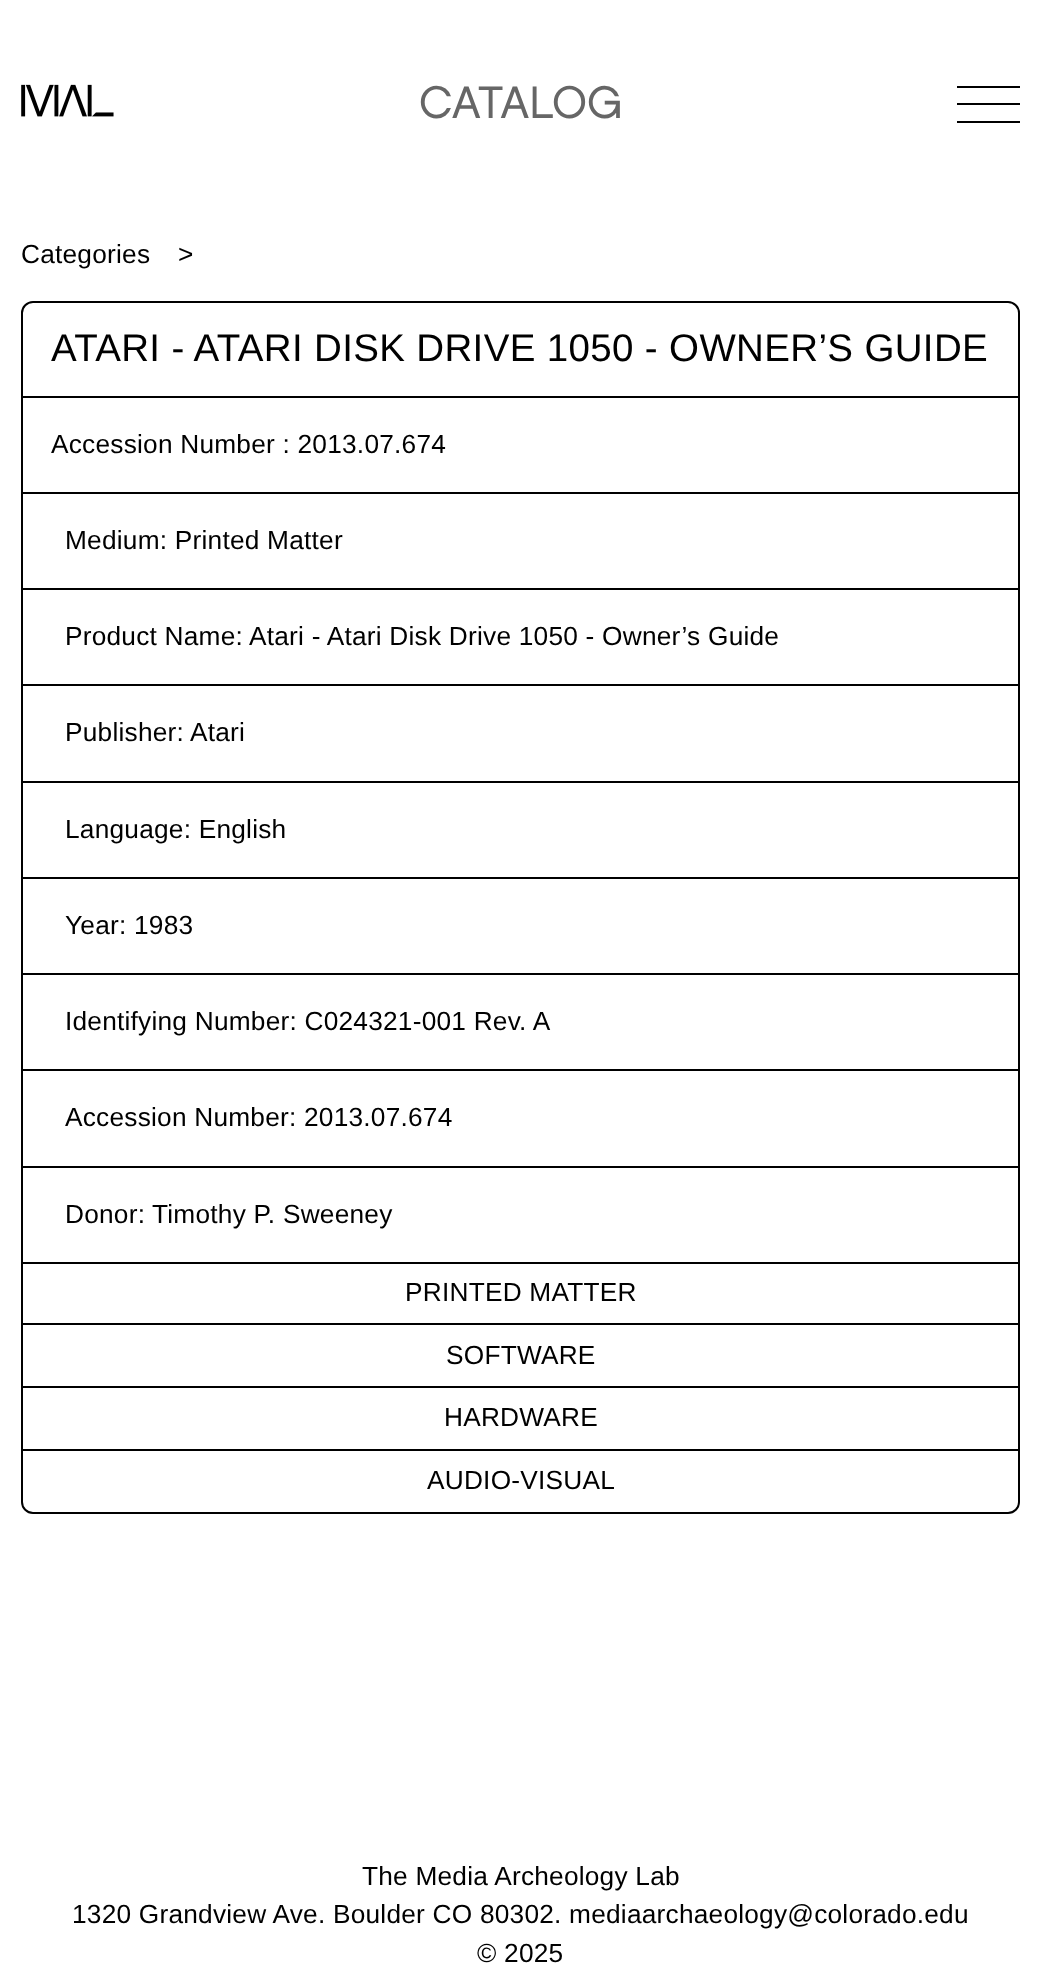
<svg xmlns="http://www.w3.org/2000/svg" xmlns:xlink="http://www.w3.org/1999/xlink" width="1040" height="1985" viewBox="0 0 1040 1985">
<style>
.cls-1{font:45.5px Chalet;fill:#666666}
.cls-2{font:26.25px Liberation Sans;letter-spacing:0.23px;fill:#000000}
.cls-3{font:38.5px Liberation Sans;letter-spacing:0.35px;fill:#000000}
</style>
<rect width="100%" height="100%" fill="#ffffff"/>
<image xlink:href="image0.png" x="21" y="84" width="93" height="33"/>
<rect fill="#000000" x="957" y="86" width="63" height="2"/>
<rect fill="#000000" x="957" y="103" width="63" height="2"/>
<rect fill="#000000" x="957" y="121" width="63" height="2"/>
<rect fill="none" stroke="#000000" stroke-width="2" x="22" y="302" width="997" height="1211" rx="11"/>
<rect fill="#000000" x="23" y="396" width="996" height="2"/>
<rect fill="#000000" x="23" y="492" width="996" height="2"/>
<rect fill="#000000" x="23" y="588" width="996" height="2"/>
<rect fill="#000000" x="23" y="684" width="996" height="2"/>
<rect fill="#000000" x="23" y="781" width="996" height="2"/>
<rect fill="#000000" x="23" y="877" width="996" height="2"/>
<rect fill="#000000" x="23" y="973" width="996" height="2"/>
<rect fill="#000000" x="23" y="1069" width="996" height="2"/>
<rect fill="#000000" x="23" y="1166" width="996" height="2"/>
<rect fill="#000000" x="23" y="1262" width="996" height="2"/>
<rect fill="#000000" x="23" y="1323" width="996" height="2"/>
<rect fill="#000000" x="23" y="1386" width="996" height="2"/>
<rect fill="#000000" x="23" y="1449" width="996" height="2"/>
<text class="cls-1" x="419" y="118">CATALOG</text>
<text class="cls-2" x="21" y="263">Categories</text>
<text class="cls-2" x="178" y="263">&gt;</text>
<text class="cls-3" x="51" y="361">ATARI - ATARI DISK DRIVE 1050 - OWNER’S GUIDE</text>
<text class="cls-2" x="51" y="453">Accession Number : 2013.07.674</text>
<text class="cls-2" x="65" y="549">Medium: Printed Matter</text>
<text class="cls-2" x="65" y="645">Product Name:</text>
<text class="cls-2" x="249" y="645">Atari - Atari Disk Drive 1050 - Owner’s Guide</text>
<text class="cls-2" x="65" y="741">Publisher:</text>
<text class="cls-2" x="190" y="741">Atari</text>
<text class="cls-2" x="65" y="838">Language: English</text>
<text class="cls-2" x="65" y="934">Year: 1983</text>
<text class="cls-2" x="65" y="1030">Identifying Number: C024321-001 Rev. A</text>
<text class="cls-2" x="65" y="1126">Accession Number: 2013.07.674</text>
<text class="cls-2" x="65" y="1223">Donor:</text>
<text class="cls-2" x="152" y="1223">Timothy P. Sweeney</text>
<text class="cls-2" x="405" y="1301">PRINTED MATTER</text>
<text class="cls-2" x="446" y="1364">SOFTWARE</text>
<text class="cls-2" x="444" y="1426">HARDWARE</text>
<text class="cls-2" x="427" y="1489">AUDIO-VISUAL</text>
<text class="cls-2" x="362" y="1885">The Media Archeology Lab</text>
<text class="cls-2" x="72" y="1923">1320 Grandview Ave. Boulder CO 80302. mediaarchaeology@colorado.edu</text>
<text class="cls-2" x="477" y="1962">© 2025</text>
</svg>
